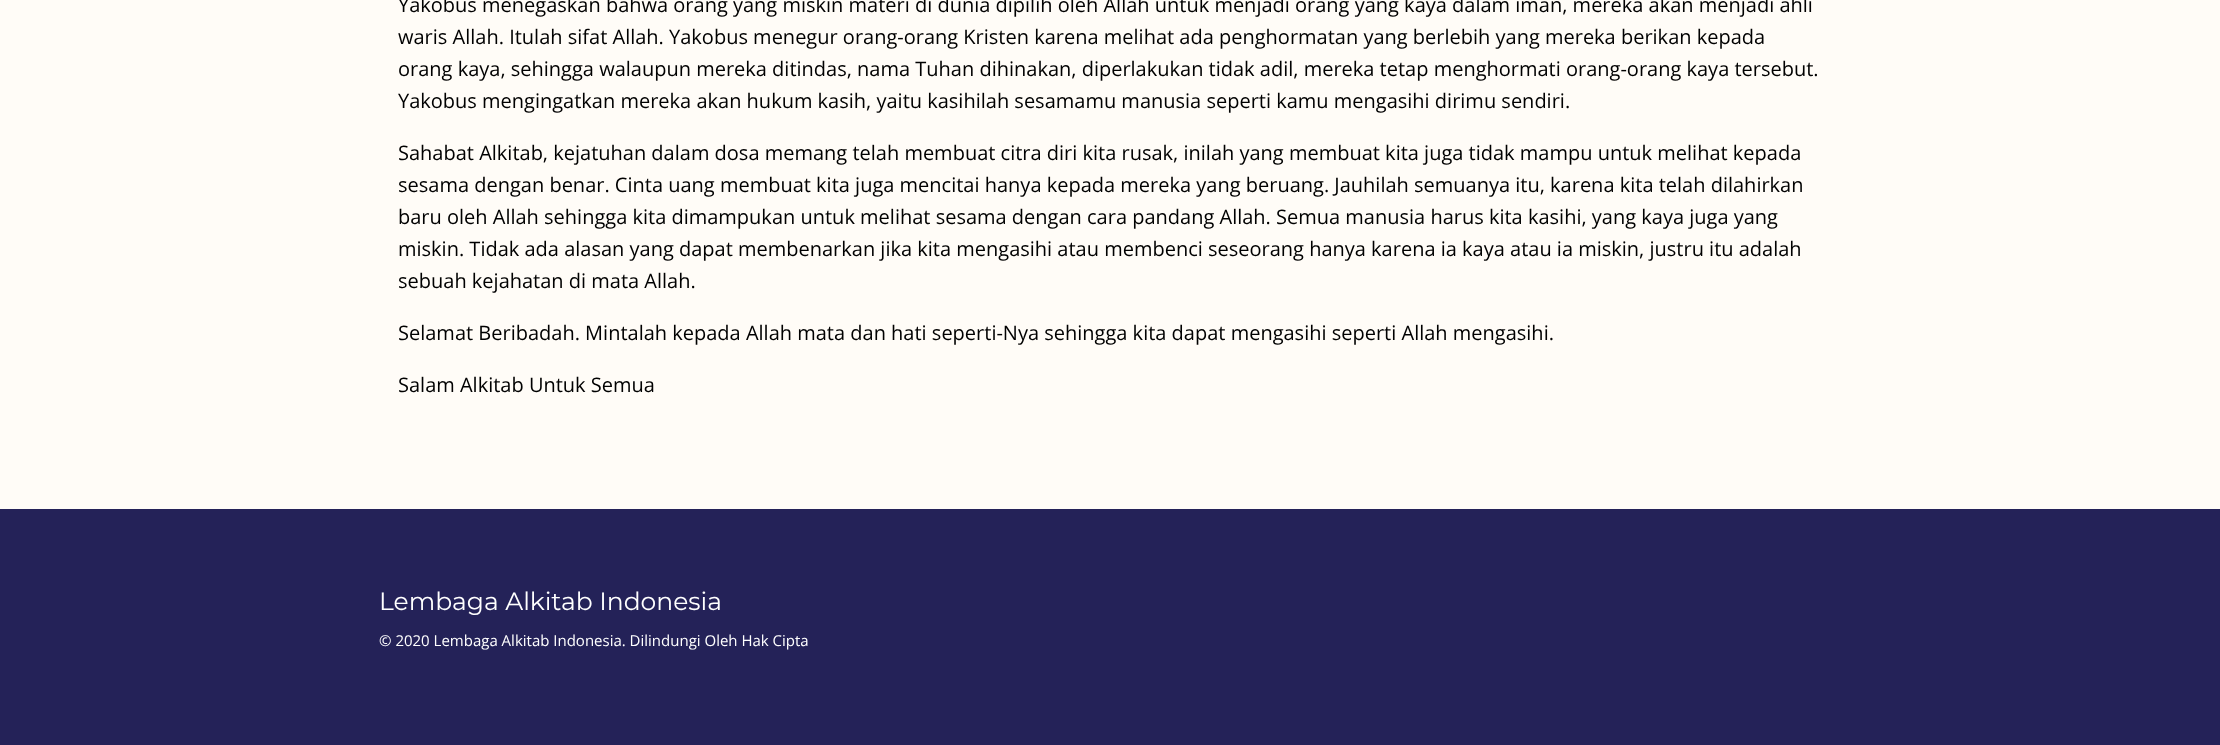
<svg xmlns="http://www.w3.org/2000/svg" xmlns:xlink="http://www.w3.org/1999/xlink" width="2220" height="745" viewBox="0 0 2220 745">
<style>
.cls-1{font:20px Open Sans;fill:#000000}
.cls-2{font:25px Montserrat;fill:#ffffff}
.cls-3{font:15px Open Sans;fill:#ffffff}
</style>
<rect width="100%" height="100%" fill="#fffcf7"/>
<rect fill="#242258" x="0" y="509" width="2220" height="236"/>
<text class="cls-1"><tspan x="398" y="12">Yakobus menegaskan bahwa orang yang miskin materi di dunia dipilih oleh Allah untuk menjadi orang yang kaya dalam iman, mereka akan menjadi ahli</tspan><tspan x="398" y="44">waris Allah. Itulah sifat Allah. Yakobus menegur orang-orang Kristen karena melihat ada penghormatan yang berlebih yang mereka berikan kepada</tspan><tspan x="398" y="76">orang kaya, sehingga walaupun mereka ditindas, nama Tuhan dihinakan, diperlakukan tidak adil, mereka tetap menghormati orang-orang kaya tersebut.</tspan><tspan x="398" y="108">Yakobus mengingatkan mereka akan hukum kasih, yaitu kasihilah sesamamu manusia seperti kamu mengasihi dirimu sendiri.</tspan></text>
<text class="cls-1"><tspan x="398" y="160">Sahabat Alkitab, kejatuhan dalam dosa memang telah membuat citra diri kita rusak, inilah yang membuat kita juga tidak mampu untuk melihat kepada</tspan><tspan x="398" y="192">sesama dengan benar. Cinta uang membuat kita juga mencitai hanya kepada mereka yang beruang. Jauhilah semuanya itu, karena kita telah dilahirkan</tspan><tspan x="398" y="224">baru oleh Allah sehingga kita dimampukan untuk melihat sesama dengan cara pandang Allah. Semua manusia harus kita kasihi, yang kaya juga yang</tspan><tspan x="398" y="256">miskin. Tidak ada alasan yang dapat membenarkan jika kita mengasihi atau membenci seseorang hanya karena ia kaya atau ia miskin, justru itu adalah</tspan><tspan x="398" y="288">sebuah kejahatan di mata Allah.</tspan></text>
<text class="cls-1" x="398" y="340">Selamat Beribadah. Mintalah kepada Allah mata dan hati seperti-Nya sehingga kita dapat mengasihi seperti Allah mengasihi.</text>
<text class="cls-1" x="398" y="392">Salam Alkitab Untuk Semua</text>
<text class="cls-2" x="379" y="610">Lembaga Alkitab Indonesia</text>
<text class="cls-3" x="379" y="646">© 2020 Lembaga Alkitab Indonesia. Dilindungi Oleh Hak Cipta</text>
</svg>
